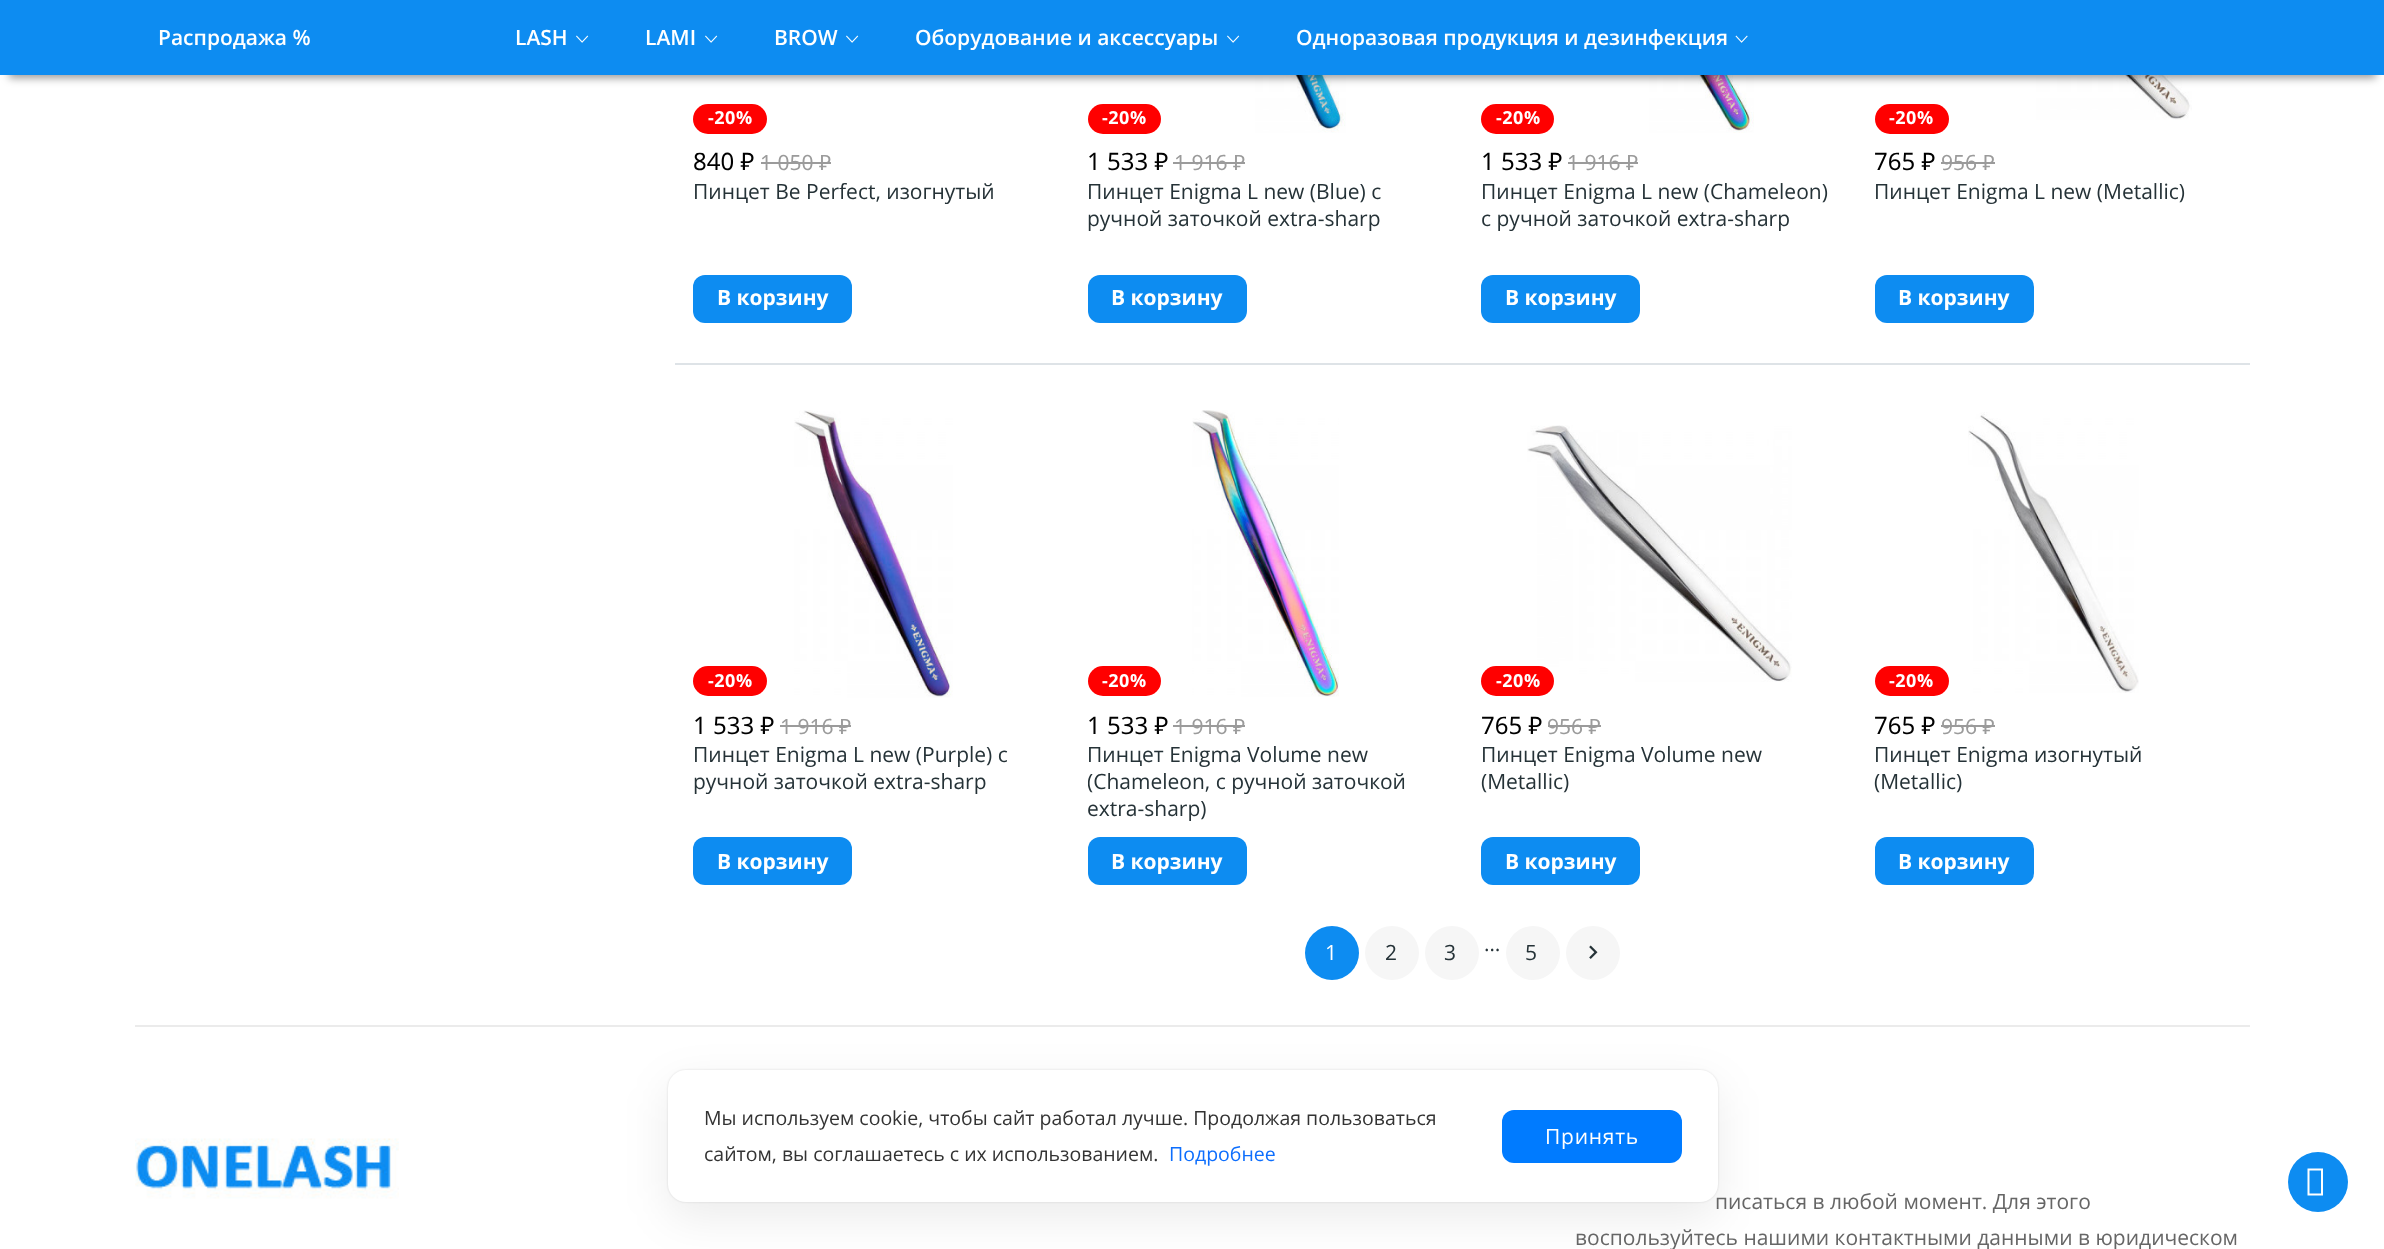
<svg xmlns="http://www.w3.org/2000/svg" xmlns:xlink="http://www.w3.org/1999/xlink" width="2384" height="1249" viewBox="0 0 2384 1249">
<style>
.cls-1{font:600 21px Open Sans;fill:#ffffff}
.cls-2{font:bold 18px Open Sans;letter-spacing:0.5px;fill:#ffffff}
.cls-3{font:24px Noto Sans;fill:#000000}
.cls-4{font:21px Noto Sans;fill:#9b9b9b}
.cls-5{font:21px Open Sans;fill:#253237}
.cls-6{font:bold 21px Open Sans;fill:#ffffff}
.cls-7{font:21px Open Sans;letter-spacing:3px;fill:#ffffff}
.cls-8{font:21px Open Sans;letter-spacing:3px;fill:#253237}
.cls-9{font:21px Open Sans;fill:#666666}
.cls-10{font:21px Open Sans;letter-spacing:0.75px;fill:#ffffff}
.cls-11{font:19.5px Open Sans;fill:#0d6efd}
.cls-12{font:19.5px Open Sans;fill:#333333}
</style>
<defs>
<clipPath id="clip1"><rect x="1088" y="741" width="357" height="81"/></clipPath>
</defs>
<rect width="100%" height="100%" fill="#ffffff"/>
<image xlink:href="image2.png" x="1255" y="75" width="91" height="58"/>
<image xlink:href="image3.png" x="1649" y="75" width="105" height="58"/>
<image xlink:href="image4.png" x="2036" y="75" width="156" height="45"/>
<rect fill="#000000" fill-opacity="0.4" filter="blur(4.5px)" x="9" y="21" width="2367" height="57"/>
<rect fill="#0d8cf1" x="0" y="0" width="2384" height="75"/>
<image xlink:href="image0.png" x="576" y="35" width="13" height="8"/>
<image xlink:href="image0.png" x="705" y="35" width="13" height="8"/>
<image xlink:href="image0.png" x="846" y="35" width="13" height="8"/>
<image xlink:href="image0.png" x="1227" y="35" width="13" height="8"/>
<image xlink:href="image1.png" x="1735" y="35" width="13" height="8"/>
<rect fill="#dee3e7" x="675" y="363" width="1575" height="2"/>
<rect fill="#ff0000" x="693" y="104" width="74" height="30" rx="15"/>
<rect fill="#9b9b9b" x="761" y="162" width="70" height="2"/>
<rect fill="#0d8cf1" x="693" y="275" width="159" height="48" rx="12"/>
<rect fill="#ff0000" x="1088" y="104" width="73" height="30" rx="15"/>
<rect fill="#9b9b9b" x="1173" y="162" width="72" height="2"/>
<rect fill="#0d8cf1" x="1088" y="275" width="159" height="48" rx="12"/>
<rect fill="#ff0000" x="1481" y="104" width="73" height="30" rx="15"/>
<rect fill="#9b9b9b" x="1568" y="162" width="70" height="2"/>
<rect fill="#0d8cf1" x="1481" y="275" width="159" height="48" rx="12"/>
<rect fill="#ff0000" x="1875" y="104" width="74" height="30" rx="15"/>
<rect fill="#9b9b9b" x="1941" y="162" width="54" height="2"/>
<rect fill="#0d8cf1" x="1875" y="275" width="159" height="48" rx="12"/>
<image xlink:href="image5.png" x="794" y="410" width="159" height="288"/>
<rect fill="#ff0000" x="693" y="666" width="74" height="30" rx="15"/>
<rect fill="#9b9b9b" x="780" y="725" width="71" height="2"/>
<rect fill="#0d8cf1" x="693" y="837" width="159" height="48" rx="12"/>
<image xlink:href="image6.png" x="1192" y="410" width="147" height="287"/>
<rect fill="#ff0000" x="1088" y="666" width="73" height="30" rx="15"/>
<rect fill="#9b9b9b" x="1173" y="725" width="72" height="2"/>
<rect fill="#0d8cf1" x="1088" y="837" width="159" height="48" rx="12"/>
<image xlink:href="image7.png" x="1527" y="425" width="265" height="257"/>
<rect fill="#ff0000" x="1481" y="666" width="73" height="30" rx="15"/>
<rect fill="#9b9b9b" x="1548" y="725" width="53" height="2"/>
<rect fill="#0d8cf1" x="1481" y="837" width="159" height="48" rx="12"/>
<image xlink:href="image8.png" x="1968" y="412" width="171" height="281"/>
<rect fill="#ff0000" x="1875" y="666" width="74" height="30" rx="15"/>
<rect fill="#9b9b9b" x="1941" y="725" width="54" height="2"/>
<rect fill="#0d8cf1" x="1875" y="837" width="159" height="48" rx="12"/>
<circle fill="#0d8cf1" cx="1332" cy="953" r="27"/>
<circle fill="#f6f6f6" cx="1392" cy="953" r="27"/>
<circle fill="#f6f6f6" cx="1452" cy="953" r="27"/>
<circle fill="#f6f6f6" cx="1533" cy="953" r="27"/>
<circle fill="#f6f6f6" cx="1593" cy="953" r="27"/>
<image xlink:href="image9.png" x="1589" y="945" width="9" height="14"/>
<rect fill="#ebebeb" x="135" y="1025" width="2115" height="2"/>
<image xlink:href="image10.png" x="135" y="1138" width="264" height="61"/>
<rect fill="#000000" fill-opacity="0.12" filter="blur(1px)" x="668" y="1070" width="1050" height="132" rx="18"/>
<rect fill="#000000" fill-opacity="0.08" filter="blur(22.5px)" x="668" y="1085" width="1050" height="132" rx="18"/>
<circle fill="#0d8cf1" cx="2318" cy="1182" r="30"/>
<path fill="#ffffff" d="M2307.5 1195.5V1168.5H2323V1195.5ZM2309.5 1193.5H2321V1170.5H2309.5Z"/>
<text class="cls-1" x="158" y="45">Распродажа %</text>
<text class="cls-1" x="515" y="45">LASH</text>
<text class="cls-1" x="645" y="45">LAMI</text>
<text class="cls-1" x="774" y="45">BROW</text>
<text class="cls-1" x="915" y="45">Оборудование и аксессуары</text>
<text class="cls-1" x="1296" y="45">Одноразовая продукция и дезинфекция</text>
<text class="cls-2" x="708" y="124">-20%</text>
<text class="cls-3" x="693" y="170">840 ₽</text>
<text class="cls-4" x="760" y="170">1 050 ₽</text>
<text class="cls-5" x="693" y="199">Пинцет Be Perfect, изогнутый</text>
<text class="cls-6" x="717" y="305">В корзину</text>
<text class="cls-2" x="1102" y="124">-20%</text>
<text class="cls-3" x="1087" y="170">1 533 ₽</text>
<text class="cls-4" x="1174" y="170">1 916 ₽</text>
<text class="cls-5"><tspan x="1087" y="199">Пинцет Enigma L new (Blue) с</tspan><tspan x="1087" y="226">ручной заточкой extra-sharp</tspan></text>
<text class="cls-6" x="1111" y="305">В корзину</text>
<text class="cls-2" x="1496" y="124">-20%</text>
<text class="cls-3" x="1481" y="170">1 533 ₽</text>
<text class="cls-4" x="1567" y="170">1 916 ₽</text>
<text class="cls-5"><tspan x="1481" y="199">Пинцет Enigma L new (Chameleon)</tspan><tspan x="1481" y="226">с ручной заточкой extra-sharp</tspan></text>
<text class="cls-6" x="1505" y="305">В корзину</text>
<text class="cls-2" x="1889" y="124">-20%</text>
<text class="cls-3" x="1874" y="170">765 ₽</text>
<text class="cls-4" x="1941" y="170">956 ₽</text>
<text class="cls-5" x="1874" y="199">Пинцет Enigma L new (Metallic)</text>
<text class="cls-6" x="1898" y="305">В корзину</text>
<text class="cls-2" x="708" y="687">-20%</text>
<text class="cls-3" x="693" y="734">1 533 ₽</text>
<text class="cls-4" x="780" y="734">1 916 ₽</text>
<text class="cls-5"><tspan x="693" y="762">Пинцет Enigma L new (Purple) с</tspan><tspan x="693" y="789">ручной заточкой extra-sharp</tspan></text>
<text class="cls-6" x="717" y="869">В корзину</text>
<text class="cls-2" x="1102" y="687">-20%</text>
<text class="cls-3" x="1087" y="734">1 533 ₽</text>
<text class="cls-4" x="1174" y="734">1 916 ₽</text>
<text class="cls-5" x="1087" y="762">Пинцет Enigma Volume new</text>
<g clip-path="url(#clip1)">
<text class="cls-5" x="1087" y="789">(Chameleon, с ручной заточкой</text>
</g>
<text class="cls-5" x="1087" y="816">extra-sharp)</text>
<text class="cls-6" x="1111" y="869">В корзину</text>
<text class="cls-2" x="1496" y="687">-20%</text>
<text class="cls-3" x="1481" y="734">765 ₽</text>
<text class="cls-4" x="1547" y="734">956 ₽</text>
<text class="cls-5"><tspan x="1481" y="762">Пинцет Enigma Volume new</tspan><tspan x="1481" y="789">(Metallic)</tspan></text>
<text class="cls-6" x="1505" y="869">В корзину</text>
<text class="cls-2" x="1889" y="687">-20%</text>
<text class="cls-3" x="1874" y="734">765 ₽</text>
<text class="cls-4" x="1941" y="734">956 ₽</text>
<text class="cls-5"><tspan x="1874" y="762">Пинцет Enigma изогнутый</tspan><tspan x="1874" y="789">(Metallic)</tspan></text>
<text class="cls-6" x="1898" y="869">В корзину</text>
<text class="cls-7" x="1325" y="960">1</text>
<text class="cls-8" x="1385" y="960">2</text>
<text class="cls-8" x="1444" y="960">3</text>
<text class="cls-5" x="1484" y="951">…</text>
<text class="cls-8" x="1525" y="960">5</text>
<text class="cls-9" x="1715" y="1209">писаться в любой момент. Для этого</text>
<rect fill="#ffffff" x="668" y="1070" width="1050" height="132" rx="18"/>
<rect fill="#007bff" x="1502" y="1110" width="180" height="53" rx="12"/>
<text class="cls-10" x="1545" y="1144">Принять</text>
<text class="cls-11" x="1169" y="1161">Подробнее</text>
<text class="cls-12" x="704" y="1161">сайтом, вы соглашаетесь с их использованием.</text>
<text class="cls-12" x="704" y="1125">Мы используем cookie, чтобы сайт работал лучше. Продолжая пользоваться</text>
<text class="cls-9" x="1575" y="1245">воспользуйтесь нашими контактными данными в юридическом</text>
</svg>
